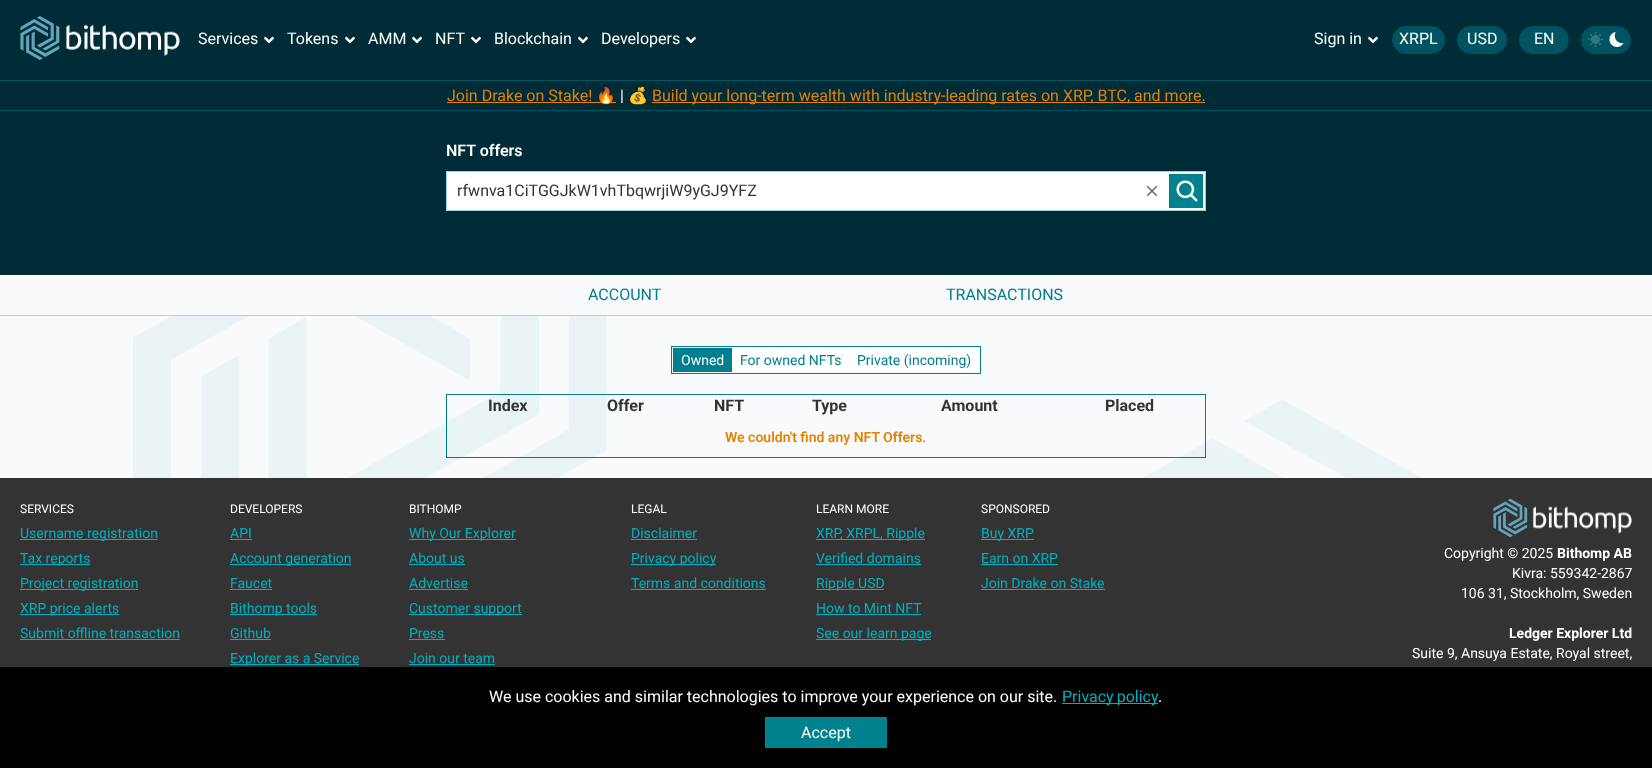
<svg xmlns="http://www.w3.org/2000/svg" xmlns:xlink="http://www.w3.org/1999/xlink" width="1652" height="768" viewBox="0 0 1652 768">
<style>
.cls-1{font:16px Roboto;fill:#ffffff}
.cls-2{font:16px Roboto;fill:#e38203}
.cls-3{font:16px Noto Color Emoji;fill:#e38203}
.cls-4{font:16px Noto Color Emoji;fill:#ffffff}
.cls-5{font:600 16px Roboto;fill:#ffffff}
.cls-6{font:16px Roboto;fill:#333333}
.cls-7{font:16px Roboto;fill:#00808e}
.cls-8{font:14px Roboto;fill:#ffffff}
.cls-9{font:14px Roboto;fill:#00808e}
.cls-10{font:bold 16px Roboto;fill:#333333}
.cls-11{font:600 14px Roboto;fill:#e38203}
.cls-12{font:12px Roboto;fill:#ffffff}
.cls-13{font:14px Roboto;fill:#00b1c1}
.cls-14{font:bold 14px Roboto;fill:#ffffff}
.cls-15{font:16px Roboto;fill:#00b1c1}
</style>
<rect width="100%" height="100%" fill="#f8fafb"/>
<image xlink:href="image0.png" x="133" y="316" width="1288" height="162"/>
<rect fill="#002c37" x="0" y="0" width="1652" height="80"/>
<rect fill="#005460" x="0" y="80" width="1652" height="1"/>
<image xlink:href="image1.png" x="20" y="16" width="160" height="44"/>
<image xlink:href="image2.png" x="264" y="36" width="10" height="8"/>
<image xlink:href="image2.png" x="345" y="36" width="10" height="8"/>
<image xlink:href="image2.png" x="412" y="36" width="10" height="8"/>
<image xlink:href="image2.png" x="471" y="36" width="10" height="8"/>
<image xlink:href="image2.png" x="578" y="36" width="10" height="8"/>
<image xlink:href="image2.png" x="686" y="36" width="10" height="8"/>
<image xlink:href="image2.png" x="1368" y="36" width="10" height="8"/>
<rect fill="#005460" stroke="#002c37" x="1391.5" y="25.5" width="54" height="29" rx="14.5"/>
<rect fill="#005460" stroke="#002c37" x="1456.5" y="25.5" width="51" height="29" rx="14.5"/>
<rect fill="#005460" stroke="#002c37" x="1518.5" y="25.5" width="51" height="29" rx="14.5"/>
<rect fill="#005460" stroke="#002c37" x="1580.5" y="25.5" width="51" height="29" rx="14.5"/>
<image xlink:href="image3.png" x="1588" y="32" width="15" height="15"/>
<image xlink:href="image4.png" x="1609" y="32" width="15" height="15"/>
<rect fill="#002c37" x="0" y="81" width="1652" height="29"/>
<rect fill="#005460" x="0" y="110" width="1652" height="1"/>
<rect fill="#e38203" x="447" y="102" width="169" height="1"/>
<rect fill="#e38203" x="652" y="102" width="553" height="1"/>
<rect fill="#002c37" x="0" y="111" width="1652" height="164"/>
<rect fill="#ffffff" stroke="#9fd1da" x="446.5" y="171.5" width="759" height="39"/>
<image xlink:href="image5.png" x="1146" y="185" width="12" height="12"/>
<rect fill="#00828e" x="1169" y="174" width="34" height="34"/>
<image xlink:href="image6.png" x="1176" y="180" width="22" height="22"/>
<rect fill="#cccccc" x="0" y="315" width="1652" height="1"/>
<rect fill="none" stroke="#00808e" x="671.5" y="346.5" width="309" height="27"/>
<rect fill="#00808e" x="673" y="348" width="59" height="24"/>
<rect fill="#ffffff" x="732" y="348" width="247" height="24"/>
<rect fill="#00808e" x="446" y="394" width="760" height="1"/>
<rect fill="#00808e" x="1205" y="394" width="1" height="64"/>
<rect fill="#00808e" x="446" y="457" width="760" height="1"/>
<rect fill="#00808e" x="446" y="394" width="1" height="64"/>
<rect fill="#333333" x="0" y="478" width="1652" height="189"/>
<rect fill="#00b1c1" x="20" y="539" width="138" height="1"/>
<rect fill="#00b1c1" x="20" y="564" width="70" height="1"/>
<rect fill="#00b1c1" x="20" y="589" width="118" height="1"/>
<rect fill="#00b1c1" x="20" y="614" width="99" height="1"/>
<rect fill="#00b1c1" x="20" y="639" width="160" height="1"/>
<rect fill="#00b1c1" x="230" y="539" width="22" height="1"/>
<rect fill="#00b1c1" x="230" y="564" width="121" height="1"/>
<rect fill="#00b1c1" x="230" y="589" width="42" height="1"/>
<rect fill="#00b1c1" x="230" y="614" width="87" height="1"/>
<rect fill="#00b1c1" x="230" y="639" width="41" height="1"/>
<rect fill="#00b1c1" x="230" y="664" width="129" height="1"/>
<rect fill="#00b1c1" x="409" y="539" width="107" height="1"/>
<rect fill="#00b1c1" x="409" y="564" width="56" height="1"/>
<rect fill="#00b1c1" x="409" y="589" width="59" height="1"/>
<rect fill="#00b1c1" x="409" y="614" width="113" height="1"/>
<rect fill="#00b1c1" x="409" y="639" width="36" height="1"/>
<rect fill="#00b1c1" x="409" y="664" width="86" height="1"/>
<rect fill="#00b1c1" x="631" y="539" width="66" height="1"/>
<rect fill="#00b1c1" x="631" y="564" width="85" height="1"/>
<rect fill="#00b1c1" x="631" y="589" width="135" height="1"/>
<rect fill="#00b1c1" x="816" y="539" width="109" height="1"/>
<rect fill="#00b1c1" x="816" y="564" width="105" height="1"/>
<rect fill="#00b1c1" x="816" y="589" width="68" height="1"/>
<rect fill="#00b1c1" x="816" y="614" width="105" height="1"/>
<rect fill="#00b1c1" x="816" y="639" width="115" height="1"/>
<rect fill="#00b1c1" x="981" y="539" width="53" height="1"/>
<rect fill="#00b1c1" x="981" y="564" width="77" height="1"/>
<rect fill="#00b1c1" x="981" y="589" width="124" height="1"/>
<image xlink:href="image7.png" x="1493" y="498" width="139" height="40"/>
<rect fill="#000000" x="0" y="667" width="1652" height="101"/>
<rect fill="#00b1c1" x="1062" y="703" width="96" height="1"/>
<rect fill="#00828e" x="765" y="717" width="122" height="31"/>
<text class="cls-1" x="198" y="44">Services</text>
<text class="cls-1" x="287" y="44">Tokens</text>
<text class="cls-1" x="368" y="44">AMM</text>
<text class="cls-1" x="435" y="44">NFT</text>
<text class="cls-1" x="494" y="44">Blockchain</text>
<text class="cls-1" x="601" y="44">Developers</text>
<text class="cls-1" x="1314" y="44">Sign in</text>
<text class="cls-1" x="1399" y="44">XRPL</text>
<text class="cls-1" x="1467" y="44">USD</text>
<text class="cls-1" x="1534" y="44">EN</text>
<text class="cls-2" x="447" y="101">Join Drake on Stake!</text>
<text class="cls-3" x="596" y="101">🔥</text>
<text class="cls-1" x="620" y="101">|</text>
<text class="cls-4" x="628" y="101">💰</text>
<text class="cls-2" x="652" y="101">Build your long-term wealth with industry-leading rates on XRP, BTC, and more.</text>
<text class="cls-5" x="446" y="156">NFT offers</text>
<text class="cls-6" x="457" y="196">rfwnva1CiTGGJkW1vhTbqwrjiW9yGJ9YFZ</text>
<text class="cls-7" x="588" y="300">ACCOUNT</text>
<text class="cls-7" x="946" y="300">TRANSACTIONS</text>
<text class="cls-8" x="681" y="365">Owned</text>
<text class="cls-9" x="740" y="365">For owned NFTs</text>
<text class="cls-9" x="857" y="365">Private (incoming)</text>
<text class="cls-10" x="488" y="411">Index</text>
<text class="cls-10" x="607" y="411">Offer</text>
<text class="cls-10" x="714" y="411">NFT</text>
<text class="cls-10" x="812" y="411">Type</text>
<text class="cls-10" x="941" y="411">Amount</text>
<text class="cls-10" x="1105" y="411">Placed</text>
<text class="cls-11" x="725" y="442">We couldn't find any NFT Offers.</text>
<text class="cls-12" x="20" y="513">SERVICES</text>
<text class="cls-13"><tspan x="20" y="538">Username registration</tspan><tspan x="20" y="563">Tax reports</tspan><tspan x="20" y="588">Project registration</tspan><tspan x="20" y="613">XRP price alerts</tspan><tspan x="20" y="638">Submit offline transaction</tspan></text>
<text class="cls-12" x="230" y="513">DEVELOPERS</text>
<text class="cls-13"><tspan x="230" y="538">API</tspan><tspan x="230" y="563">Account generation</tspan><tspan x="230" y="588">Faucet</tspan><tspan x="230" y="613">Bithomp tools</tspan><tspan x="230" y="638">Github</tspan><tspan x="230" y="663">Explorer as a Service</tspan></text>
<text class="cls-12" x="409" y="513">BITHOMP</text>
<text class="cls-13"><tspan x="409" y="538">Why Our Explorer</tspan><tspan x="409" y="563">About us</tspan><tspan x="409" y="588">Advertise</tspan><tspan x="409" y="613">Customer support</tspan><tspan x="409" y="638">Press</tspan><tspan x="409" y="663">Join our team</tspan></text>
<text class="cls-12" x="631" y="513">LEGAL</text>
<text class="cls-13"><tspan x="631" y="538">Disclaimer</tspan><tspan x="631" y="563">Privacy policy</tspan><tspan x="631" y="588">Terms and conditions</tspan></text>
<text class="cls-12" x="816" y="513">LEARN MORE</text>
<text class="cls-13"><tspan x="816" y="538">XRP, XRPL, Ripple</tspan><tspan x="816" y="563">Verified domains</tspan><tspan x="816" y="588">Ripple USD</tspan><tspan x="816" y="613">How to Mint NFT</tspan><tspan x="816" y="638">See our learn page</tspan></text>
<text class="cls-12" x="981" y="513">SPONSORED</text>
<text class="cls-13"><tspan x="981" y="538">Buy XRP</tspan><tspan x="981" y="563">Earn on XRP</tspan><tspan x="981" y="588">Join Drake on Stake</tspan></text>
<text class="cls-8" x="1444" y="558">Copyright © 2025</text>
<text class="cls-14" x="1557" y="558">Bithomp AB</text>
<text class="cls-8" x="1512" y="578">Kivra: 559342-2867</text>
<text class="cls-8" x="1461" y="598">106 31, Stockholm, Sweden</text>
<text class="cls-14" x="1509" y="638">Ledger Explorer Ltd</text>
<text class="cls-8" x="1412" y="658">Suite 9, Ansuya Estate, Royal street,</text>
<text class="cls-1" x="489" y="702">We use cookies and similar technologies to improve your experience on our site.</text>
<text class="cls-15" x="1062" y="702" word-spacing="-1">Privacy policy</text>
<text class="cls-1" x="1158" y="702">.</text>
<text class="cls-1" x="801" y="738">Accept</text>
</svg>
